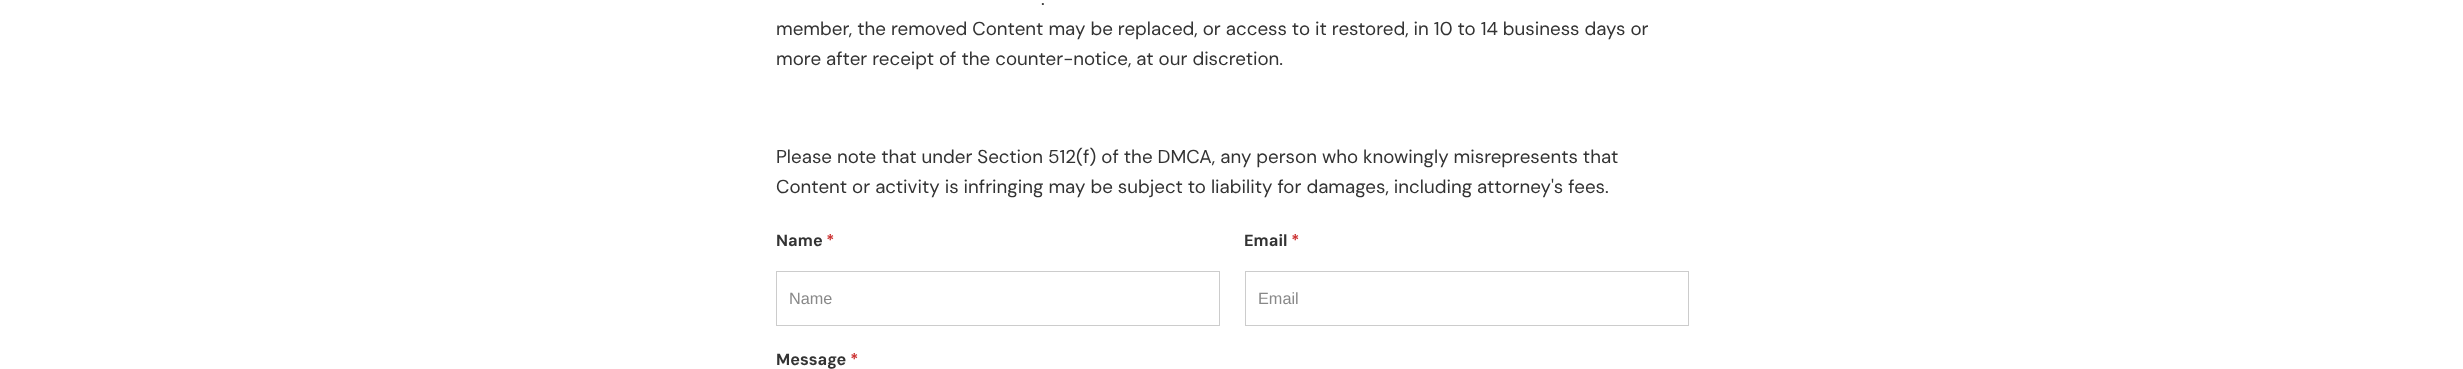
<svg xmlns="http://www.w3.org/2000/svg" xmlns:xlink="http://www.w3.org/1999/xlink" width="2463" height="369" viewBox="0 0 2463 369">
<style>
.cls-1{font:18.75px DM Sans;fill:#333333}
.cls-2{font:bold 16.25px DM Sans;fill:#333333}
.cls-3{font:bold 16.25px DM Sans;fill:#cc3333}
.cls-4{font:16.25px Liberation Sans;fill:#888888}
</style>
<rect width="100%" height="100%" fill="#ffffff"/>
<rect fill="none" stroke="#cccccc" x="776.5" y="271.5" width="443" height="54"/>
<rect fill="none" stroke="#cccccc" x="1245.5" y="271.5" width="443" height="54"/>
<text class="cls-1" x="1041" y="5">.</text>
<text class="cls-1"><tspan x="776" y="35">member, the removed Content may be replaced, or access to it restored, in 10 to 14 business days or</tspan><tspan x="776" y="65">more after receipt of the counter-notice, at our discretion.</tspan></text>
<text class="cls-1"><tspan x="776" y="163">Please note that under Section 512(f) of the DMCA, any person who knowingly misrepresents that</tspan><tspan x="776" y="193">Content or activity is infringing may be subject to liability for damages, including attorney's fees.</tspan></text>
<text class="cls-2" x="776" y="246">Name</text>
<text class="cls-3" x="826" y="246">*</text>
<text class="cls-4" x="789" y="304">Name</text>
<text class="cls-2" x="1244" y="246">Email</text>
<text class="cls-3" x="1291" y="246">*</text>
<text class="cls-4" x="1258" y="304">Email</text>
<text class="cls-2" x="776" y="365">Message</text>
<text class="cls-3" x="850" y="365">*</text>
</svg>
